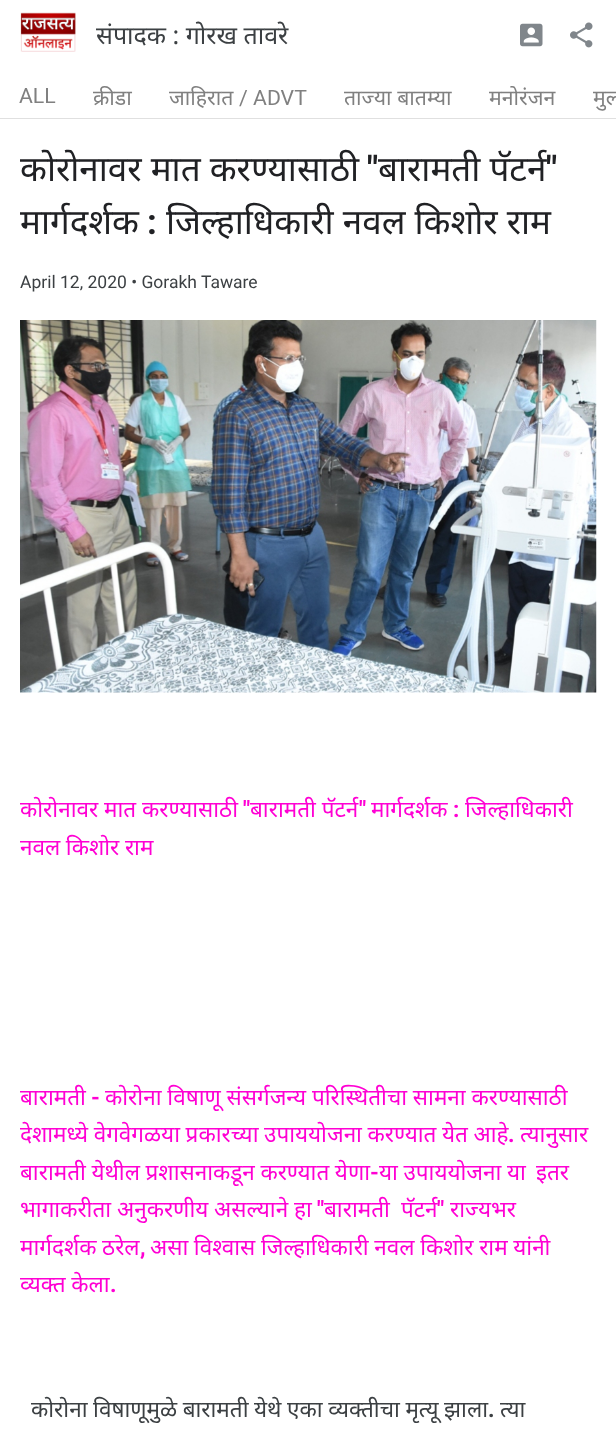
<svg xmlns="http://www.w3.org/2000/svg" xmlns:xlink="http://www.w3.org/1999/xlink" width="616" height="1430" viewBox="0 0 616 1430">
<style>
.cls-1{font:25px Noto Sans;fill:#3c4043}
.cls-2{font:21.25px Roboto;fill:#808080}
.cls-3{font:21.25px Noto Sans;fill:#808080}
.cls-4{font:35px Noto Sans;fill:#202124}
.cls-5{font:bold 35px Roboto;fill:#202124}
.cls-6{font:17.5px Roboto;fill:#3c4043}
.cls-7{font:22.5px Noto Sans;fill:#ff00d4}
.cls-8{font:bold 22.5px Roboto;fill:#ff00d4}
.cls-9{font:22.5px Noto Sans;fill:#3c4043}
.cls-10{font:bold 22.5px Roboto;fill:#3c4043}
</style>
<defs>
<clipPath id="clip1"><rect x="20" y="144" width="576" height="105"/></clipPath>
</defs>
<rect width="100%" height="100%" fill="#ffffff"/>
<rect fill="#e0e0e0" x="0" y="118" width="616" height="1"/>
<image xlink:href="image0.png" x="20" y="12" width="56" height="40"/>
<image xlink:href="image1.png" x="520" y="23" width="23" height="24"/>
<image xlink:href="image2.png" x="570" y="22" width="23" height="26"/>
<image xlink:href="image3.png" x="20" y="320" width="577" height="373"/>
<text class="cls-1" x="96" y="44">संपादक : गोरख तावरे</text>
<text class="cls-2" x="19" y="103">ALL</text>
<text class="cls-3" x="93" y="105">क्रीडा</text>
<text class="cls-3" x="169" y="105">जाहिरात</text>
<text class="cls-2" x="239" y="105">/ ADVT</text>
<text class="cls-3" x="344" y="105">ताज्या बातम्या</text>
<text class="cls-3" x="489" y="105">मनोरंजन</text>
<text class="cls-3" x="593" y="105">मुल</text>
<g clip-path="url(#clip1)">
<text class="cls-4" x="20" y="181">कोरोनावर मात करण्यासाठी</text>
</g>
<text class="cls-5" x="367" y="181">"</text>
<text class="cls-4" x="378" y="181">बारामती पॅटर्न</text>
<text class="cls-5" x="546" y="181">"</text>
<text class="cls-4" x="20" y="234">मार्गदर्शक</text>
<text class="cls-5" x="147" y="234">:</text>
<text class="cls-4" x="166" y="234">जिल्हाधिकारी नवल किशोर राम</text>
<text class="cls-6" x="20" y="288">April 12, 2020 • Gorakh Taware</text>
<text class="cls-7" x="20" y="817">कोरोनावर मात करण्यासाठी</text>
<text class="cls-8" x="243" y="817">"</text>
<text class="cls-7" x="250" y="817">बारामती पॅटर्न</text>
<text class="cls-8" x="359" y="817">"</text>
<text class="cls-7" x="371" y="817">मार्गदर्शक</text>
<text class="cls-8" x="453" y="817">:</text>
<text class="cls-7" x="465" y="817">जिल्हाधिकारी</text>
<text class="cls-7" x="20" y="855" word-spacing="-0.25">नवल किशोर राम</text>
<text class="cls-7" x="20" y="1105">बारामती</text>
<text class="cls-8" x="91" y="1105">-</text>
<text class="cls-7" x="105" y="1105">कोरोना विषाणू संसर्गजन्य परिस्थितीचा सामना करण्यासाठी</text>
<text class="cls-7" x="20" y="1142" word-spacing="-0.25">देशामध्ये वेगवेगळया प्रकारच्या उपाययोजना करण्यात येत आहे</text>
<text class="cls-8" x="508" y="1142">.</text>
<text class="cls-7" x="520" y="1142">त्यानुसार</text>
<text class="cls-7" x="20" y="1180" word-spacing="-0.25">बारामती येथील प्रशासनाकडून करण्यात येणा</text>
<text class="cls-8" x="370" y="1180">-</text>
<text class="cls-7" x="379" y="1180" word-spacing="-0.25">या उपाययोजना या</text>
<text class="cls-7" x="536" y="1180">इतर</text>
<text class="cls-7" x="20" y="1217">भागाकरीता अनुकरणीय असल्याने हा</text>
<text class="cls-8" x="317" y="1217">"</text>
<text class="cls-7" x="324" y="1217">बारामती</text>
<text class="cls-7" x="401" y="1217">पॅटर्न</text>
<text class="cls-8" x="437" y="1217">"</text>
<text class="cls-7" x="450" y="1217">राज्यभर</text>
<text class="cls-7" x="20" y="1255" word-spacing="-0.25">मार्गदर्शक ठरेल</text>
<text class="cls-8" x="140" y="1255">,</text>
<text class="cls-7" x="150" y="1255" word-spacing="-0.25">असा विश्वास जिल्हाधिकारी नवल किशोर राम यांनी</text>
<text class="cls-7" x="20" y="1292" word-spacing="-0.25">व्यक्त केला</text>
<text class="cls-8" x="110" y="1292">.</text>
<text class="cls-9" x="31" y="1417" word-spacing="-0.25">कोरोना विषाणूमुळे बारामती येथे एका व्यक्तीचा मृत्यू झाला</text>
<text class="cls-10" x="488" y="1417">.</text>
<text class="cls-9" x="500" y="1417">त्या</text>
</svg>
